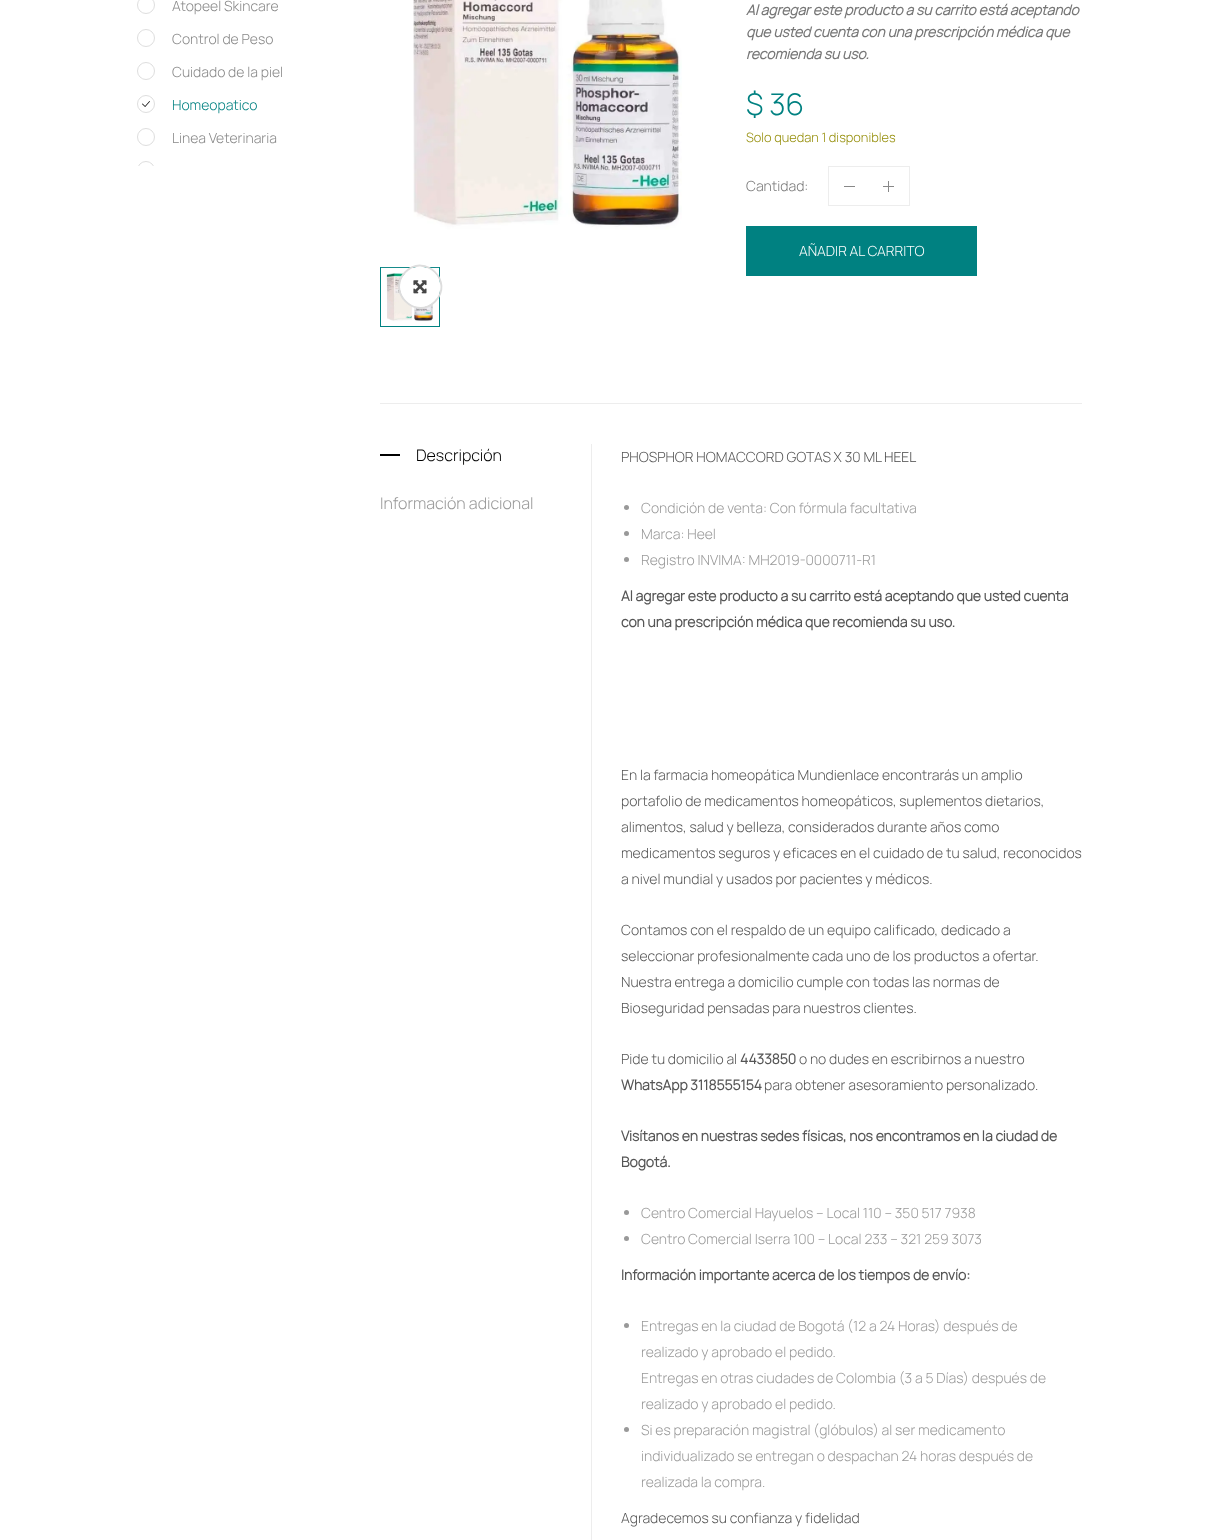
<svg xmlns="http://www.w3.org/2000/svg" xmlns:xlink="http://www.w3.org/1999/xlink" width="1218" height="1540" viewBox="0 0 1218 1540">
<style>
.cls-1{font:200 14px Manrope;fill:#888888}
.cls-2{font:200 14px Manrope;fill:#008181}
.cls-3{font:italic bold 14px Manrope;fill:#777777}
.cls-4{font:200 30px Manrope;fill:#008181}
.cls-5{font:200 12.9px Manrope;fill:#958e09}
.cls-6{font:200 14px Manrope;fill:#777777}
.cls-7{font:200 14px Manrope;fill:#ffffff}
.cls-8{font:200 16px Manrope;fill:#000000}
.cls-9{font:200 16px Manrope;fill:#999999}
.cls-10{font:200 14px Manrope;fill:#555555}
.cls-11{font:200 14px Manrope;fill:#464646}
.cls-12{font:200 14px Manrope;fill:#999999}
.cls-13{font:bold 14px Manrope;fill:#555555}
</style>
<defs>
<clipPath id="clip1"><rect x="137" y="0" width="213" height="166"/></clipPath>
</defs>
<rect width="100%" height="100%" fill="#ffffff"/>
<circle fill="none" stroke="#dedede" cx="146" cy="5" r="8.5"/>
<circle fill="none" stroke="#dedede" cx="146" cy="38" r="8.5"/>
<circle fill="none" stroke="#dedede" cx="146" cy="71" r="8.5"/>
<circle fill="none" stroke="#dedede" cx="146" cy="104" r="8.5"/>
<image xlink:href="image0.png" x="142" y="101" width="8" height="6"/>
<circle fill="none" stroke="#dedede" cx="146" cy="137" r="8.5"/>
<g clip-path="url(#clip1)">
<circle fill="none" stroke="#dedede" cx="146" cy="170" r="8.5"/>
</g>
<image xlink:href="image1.png" x="413" y="0" width="269" height="230"/>
<rect fill="none" stroke="#008181" x="380.5" y="267.5" width="59" height="59"/>
<image xlink:href="image2.png" x="381" y="267" width="58" height="55"/>
<circle fill="#ffffff" cx="420" cy="287" r="20"/>
<path fill="none" stroke="#dddddd" stroke-width="2" d="M405.5 272C425 252.5 454.5 282 435 301.5C415.5 321 386 291.5 405.5 272Z"/>
<path fill="#ffffff" d="M406 273C425 254 453 282 434 301C416 319 388 291 406 273Z"/>
<image xlink:href="image3.png" x="413" y="280" width="14" height="14"/>
<rect fill="none" stroke="#ededed" x="828.5" y="166.5" width="81" height="39"/>
<rect fill="#888888" x="844" y="186" width="11" height="1"/>
<image xlink:href="image4.png" x="883" y="181" width="11" height="11"/>
<rect fill="#008181" x="746" y="226" width="231" height="50"/>
<rect fill="#ededed" x="380" y="403" width="702" height="1"/>
<rect fill="#ededed" x="591" y="444" width="1" height="1096"/>
<rect fill="#000000" x="380" y="454" width="20" height="2"/>
<circle fill="#999999" cx="626.5" cy="507.5" r="2.5"/>
<circle fill="#999999" cx="626.5" cy="533.5" r="2.5"/>
<circle fill="#999999" cx="626.5" cy="559.5" r="2.5"/>
<circle fill="#999999" cx="626.5" cy="1212.5" r="2.5"/>
<circle fill="#999999" cx="626.5" cy="1238.5" r="2.5"/>
<circle fill="#999999" cx="626.5" cy="1325.5" r="2.5"/>
<circle fill="#999999" cx="626.5" cy="1429.5" r="2.5"/>
<text class="cls-1" x="172" y="11">Atopeel Skincare</text>
<text class="cls-1" x="172" y="44">Control de Peso</text>
<text class="cls-1" x="172" y="77">Cuidado de la piel</text>
<text class="cls-2" x="172" y="110">Homeopatico</text>
<text class="cls-1" x="172" y="143">Linea Veterinaria</text>
<text class="cls-3"><tspan x="746" y="15">Al agregar este producto a su carrito está aceptando</tspan><tspan x="746" y="37">que usted cuenta con una prescripción médica que</tspan><tspan x="746" y="59">recomienda su uso.</tspan></text>
<text class="cls-4" x="746" y="115">$ 36</text>
<text class="cls-5" x="746" y="142">Solo quedan 1 disponibles</text>
<text class="cls-6" x="746" y="191">Cantidad:</text>
<text class="cls-7" x="799" y="256">AÑADIR AL CARRITO</text>
<text class="cls-8" x="416" y="461">Descripción</text>
<text class="cls-9" x="380" y="509">Información adicional</text>
<text class="cls-10" x="621" y="462">PHOSPHOR HOMACCORD GOTAS X 30 ML</text>
<text class="cls-11" x="884" y="462">HEEL</text>
<text class="cls-12"><tspan x="641" y="513">Condición de venta: Con fórmula facultativa</tspan><tspan x="641" y="539">Marca: Heel</tspan><tspan x="641" y="565">Registro INVIMA: MH2019-0000711-R1</tspan></text>
<text class="cls-13"><tspan x="621" y="601">Al agregar este producto a su carrito está aceptando que usted cuenta</tspan><tspan x="621" y="627">con una prescripción médica que recomienda su uso.</tspan></text>
<text class="cls-10"><tspan x="621" y="780">En la farmacia homeopática Mundienlace encontrarás un amplio</tspan><tspan x="621" y="806">portafolio de medicamentos homeopáticos, suplementos dietarios,</tspan><tspan x="621" y="832">alimentos, salud y belleza, considerados durante años como</tspan><tspan x="621" y="858">medicamentos seguros y eficaces en el cuidado de tu salud, reconocidos</tspan><tspan x="621" y="884">a nivel mundial y usados por pacientes y médicos.</tspan></text>
<text class="cls-10"><tspan x="621" y="935">Contamos con el respaldo de un equipo calificado, dedicado a</tspan><tspan x="621" y="961">seleccionar profesionalmente cada uno de los productos a ofertar.</tspan><tspan x="621" y="987">Nuestra entrega a domicilio cumple con todas las normas de</tspan><tspan x="621" y="1013">Bioseguridad pensadas para nuestros clientes.</tspan></text>
<text class="cls-10" x="621" y="1064">Pide tu domicilio al</text>
<text class="cls-13" x="740" y="1064">4433850</text>
<text class="cls-10" x="799" y="1064">o no dudes en escribirnos a nuestro</text>
<text class="cls-13" x="621" y="1090">WhatsApp 3118555154</text>
<text class="cls-10" x="764" y="1090">para obtener asesoramiento personalizado.</text>
<text class="cls-13"><tspan x="621" y="1141">Visítanos en nuestras sedes físicas, nos encontramos en la ciudad de</tspan><tspan x="621" y="1167">Bogotá.</tspan></text>
<text class="cls-12"><tspan x="641" y="1218">Centro Comercial Hayuelos – Local 110 – 350 517 7938</tspan><tspan x="641" y="1244">Centro Comercial Iserra 100 – Local 233 – 321 259 3073</tspan></text>
<text class="cls-13" x="621" y="1280">Información importante acerca de los tiempos de envío:</text>
<text class="cls-12"><tspan x="641" y="1331">Entregas en la ciudad de Bogotá (12 a 24 Horas) después de</tspan><tspan x="641" y="1357">realizado y aprobado el pedido.</tspan><tspan x="641" y="1383">Entregas en otras ciudades de Colombia (3 a 5 Días) después de</tspan><tspan x="641" y="1409">realizado y aprobado el pedido.</tspan><tspan x="641" y="1435">Si es preparación magistral (glóbulos) al ser medicamento</tspan><tspan x="641" y="1461">individualizado se entregan o despachan 24 horas después de</tspan><tspan x="641" y="1487">realizada la compra.</tspan></text>
<text class="cls-10" x="621" y="1523">Agradecemos su confianza y fidelidad</text>
</svg>
